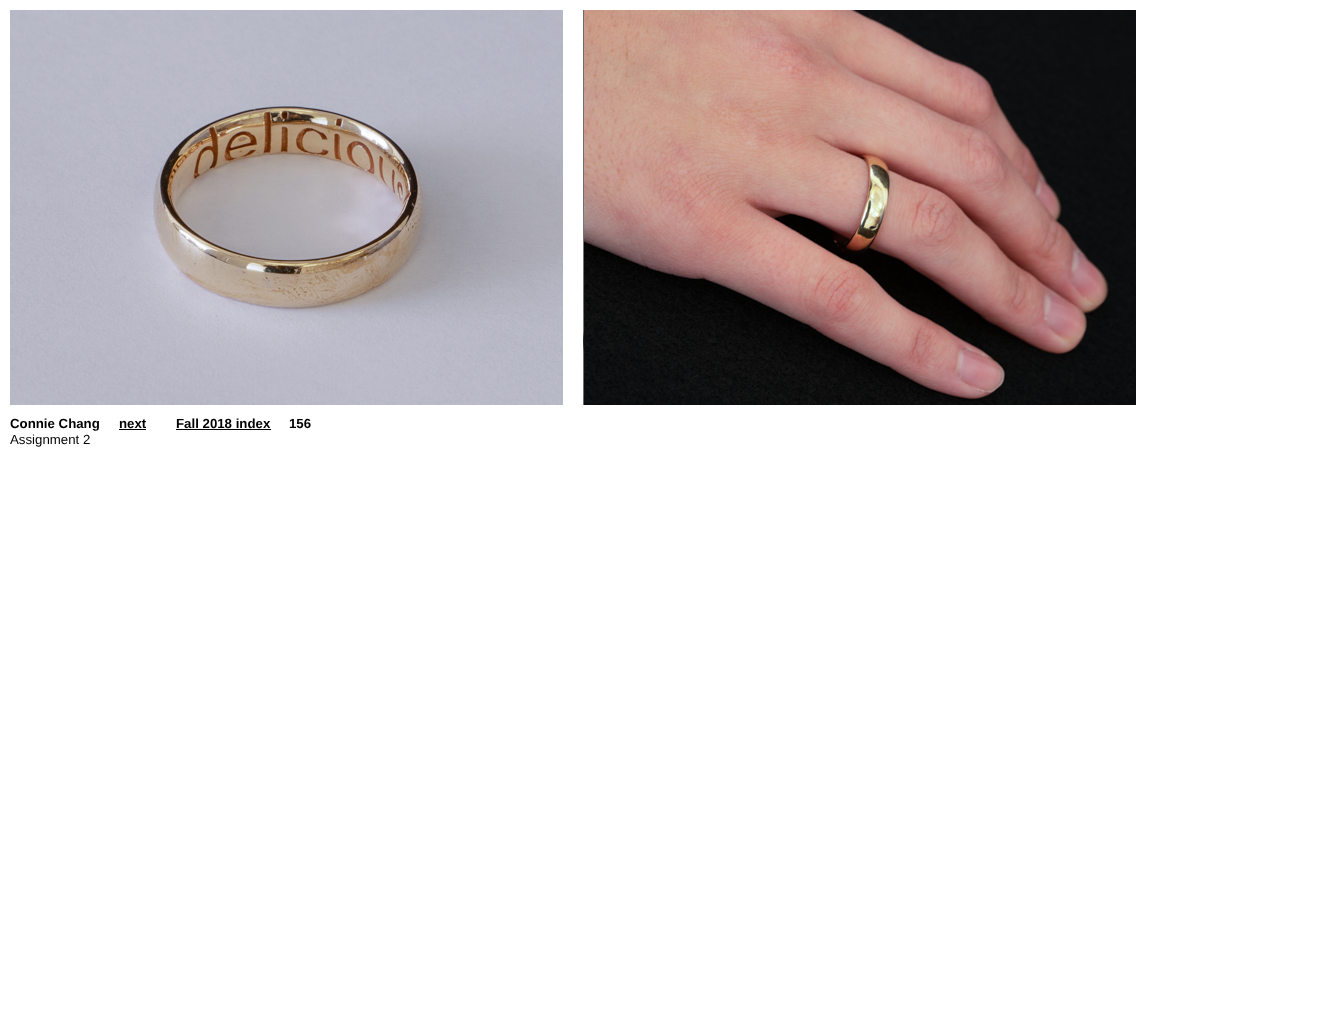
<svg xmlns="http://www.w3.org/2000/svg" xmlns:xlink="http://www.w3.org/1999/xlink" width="1323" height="1030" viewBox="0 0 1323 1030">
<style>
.cls-1{font:bold 13.25px Liberation Sans;fill:#000000}
.cls-2{font:13.25px Liberation Sans;fill:#000000}
</style>
<rect width="100%" height="100%" fill="#ffffff"/>
<image xlink:href="image0.png" x="10" y="10" width="1126" height="395"/>
<rect fill="#000000" x="119" y="429" width="27" height="1"/>
<rect fill="#000000" x="176" y="429" width="95" height="1"/>
<text class="cls-1" x="10" y="428">Connie Chang</text>
<text class="cls-1" x="119" y="428">next</text>
<text class="cls-1" x="176" y="428">Fall 2018 index</text>
<text class="cls-1" x="289" y="428">156</text>
<text class="cls-2" x="10" y="444">Assignment 2</text>
</svg>
